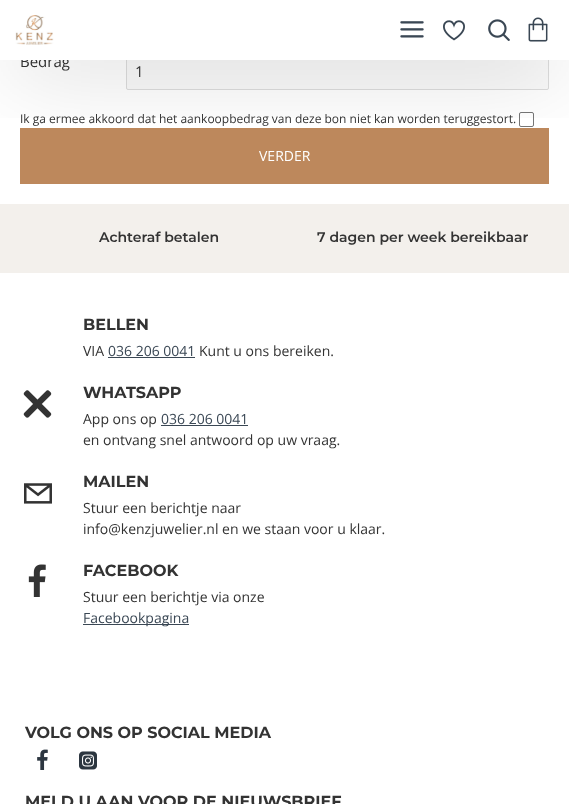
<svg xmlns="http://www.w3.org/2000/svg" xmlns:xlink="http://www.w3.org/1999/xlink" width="569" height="804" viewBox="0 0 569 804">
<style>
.cls-1{font:15px Open Sans;fill:#333333}
.cls-2{font:12px Open Sans;fill:#333333}
.cls-3{font:14px Open Sans;fill:#ffffff}
.cls-4{font:100 14px Montserrat;fill:#333333}
.cls-5{font:100 16px 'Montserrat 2';fill:#333333}
.cls-6{font:14px Open Sans;fill:#333333}
.cls-7{font:14px Open Sans;fill:#3a4754}
</style>
<defs>
<clipPath id="clip1"><rect x="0" y="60" width="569" height="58"/></clipPath>
</defs>
<rect width="100%" height="100%" fill="#ffffff"/>
<rect fill="#fafafa" stroke="#dddddd" x="126.5" y="52.5" width="422" height="37" rx="1.5"/>
<rect fill="none" stroke="#767676" x="519.5" y="112.5" width="14" height="14" rx="1.5"/>
<rect fill="#bd885c" x="20" y="128" width="529" height="56"/>
<rect fill="#f3f0ec" x="0" y="204" width="569" height="69"/>
<rect fill="#3a4754" x="108" y="357" width="87" height="1"/>
<image xlink:href="image5.png" x="23" y="390" width="29" height="28"/>
<rect fill="#3a4754" x="161" y="425" width="87" height="1"/>
<image xlink:href="image6.png" x="24" y="483" width="28" height="21"/>
<image xlink:href="image7.png" x="28" y="564" width="18" height="33"/>
<rect fill="#3a4754" x="83" y="624" width="106" height="1"/>
<image xlink:href="image8.png" x="37" y="749" width="11" height="21"/>
<image xlink:href="image9.png" x="79" y="751" width="18" height="19"/>
<text class="cls-1" x="20" y="67">Bedrag</text>
<rect fill="#ffffff" x="21" y="52" width="528" height="8"/>
<g clip-path="url(#clip1)">
<rect fill="#000000" fill-opacity="0.2" filter="blur(45px)" x="10" y="25" width="549" height="40"/>
</g>
<image xlink:href="image4.png" x="528" y="17" width="20" height="25"/>
<image xlink:href="image3.png" x="488" y="19" width="22" height="22"/>
<image xlink:href="image2.png" x="443" y="20" width="22" height="21"/>
<image xlink:href="image1.png" x="400" y="21" width="24" height="17"/>
<image xlink:href="image0.png" x="15" y="15" width="39" height="30"/>
<text class="cls-1" x="135" y="77">1</text>
<text class="cls-2" x="20" y="123">Ik ga ermee akkoord dat het aankoopbedrag van deze bon niet kan worden teruggestort.</text>
<text class="cls-3" x="259" y="161">VERDER</text>
<text class="cls-4" x="99" y="242">Achteraf betalen</text>
<text class="cls-4" x="317" y="242">7 dagen per week bereikbaar</text>
<text class="cls-5" x="83" y="330">BELLEN</text>
<text class="cls-6" x="83" y="356">VIA</text>
<text class="cls-7" x="108" y="356">036 206 0041</text>
<text class="cls-6" x="199" y="356">Kunt u ons bereiken.</text>
<text class="cls-5" x="83" y="398">WHATSAPP</text>
<text class="cls-6" x="83" y="424">App ons op</text>
<text class="cls-7" x="161" y="424">036 206 0041</text>
<text class="cls-6" x="83" y="445">en ontvang snel antwoord op uw vraag.</text>
<text class="cls-5" x="83" y="487">MAILEN</text>
<text class="cls-6"><tspan x="83" y="513">Stuur een berichtje naar</tspan><tspan x="83" y="534">info@kenzjuwelier.nl en we staan voor u klaar.</tspan></text>
<text class="cls-5" x="83" y="576">FACEBOOK</text>
<text class="cls-6" x="83" y="602">Stuur een berichtje via onze</text>
<text class="cls-7" x="83" y="623">Facebookpagina</text>
<text class="cls-5" x="25" y="738">VOLG ONS OP SOCIAL MEDIA</text>
<text class="cls-5" x="25" y="807">MELD U AAN VOOR DE NIEUWSBRIEF</text>
</svg>
